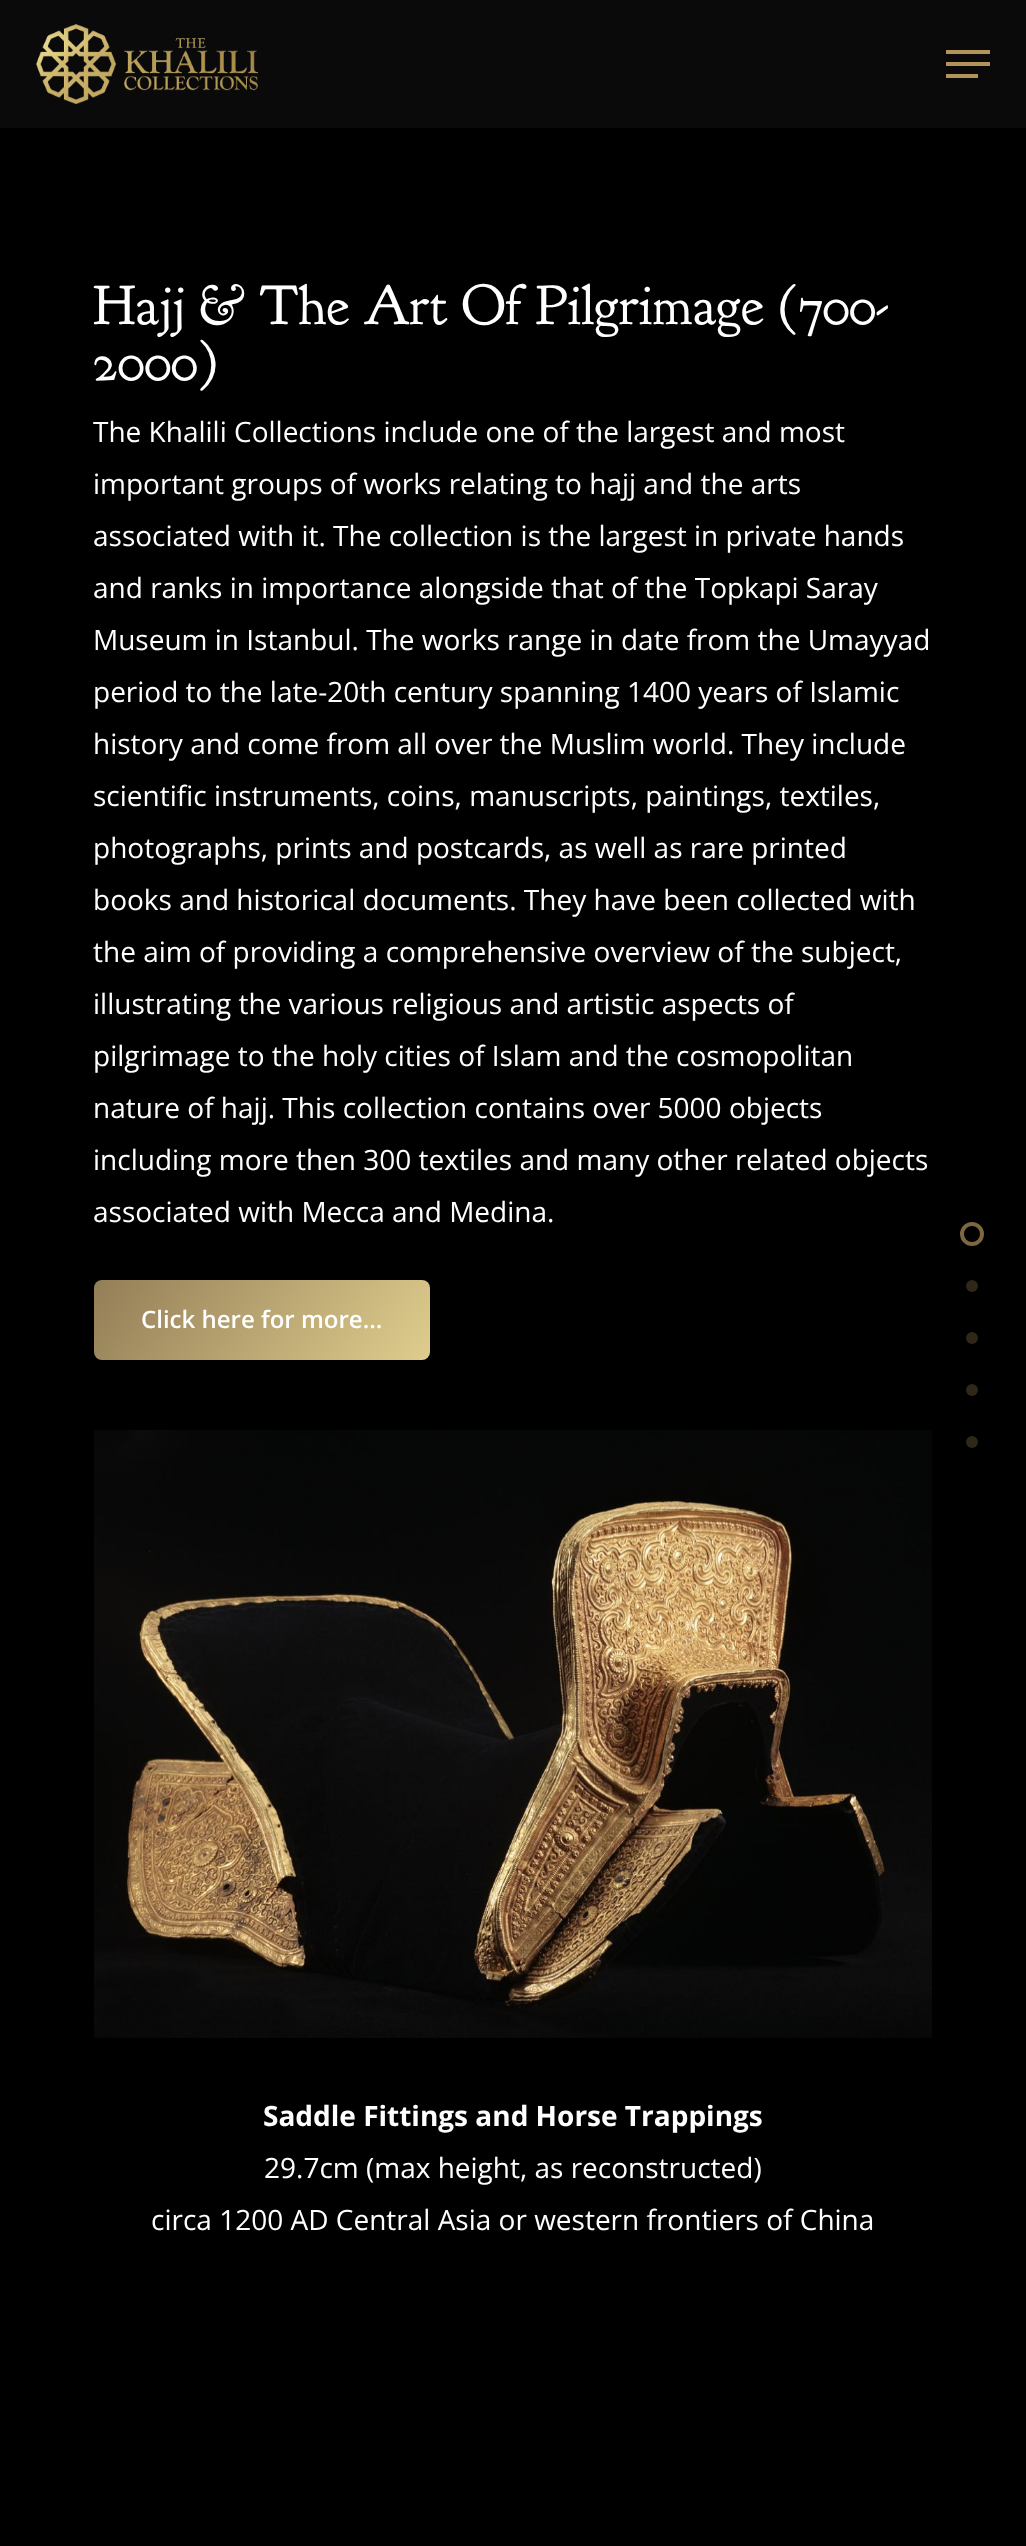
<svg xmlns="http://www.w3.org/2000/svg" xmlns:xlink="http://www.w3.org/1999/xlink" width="1026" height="2546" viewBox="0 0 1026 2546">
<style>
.cls-1{font:55.9px 'Goudy Bookletter 1911';fill:#ffffff}
.cls-2{font:28px Open Sans;fill:#ffffff}
.cls-3{font:600 24px Open Sans;fill:#ffffff}
.cls-4{font:bold 28px Open Sans;fill:#ffffff}
</style>
<defs>
<linearGradient id="g1" gradientUnits="userSpaceOnUse" x1="130" y1="1228" x2="394" y2="1412"><stop offset="0" stop-color="#937e57"/><stop offset="1" stop-color="#dfcd8d"/></linearGradient>
</defs>
<rect width="100%" height="100%" fill="#0a0a0a"/>
<image xlink:href="image0.png" x="36" y="24" width="222" height="80"/>
<rect fill="#b29359" x="946" y="50" width="44" height="4"/>
<rect fill="#b29359" x="946" y="74" width="32" height="4"/>
<rect fill="#b29359" x="946" y="62" width="44" height="4"/>
<rect fill="#000000" x="0" y="128" width="1026" height="2418"/>
<rect fill="url(#g1)" x="94" y="1280" width="336" height="80" rx="8"/>
<image xlink:href="image1.png" x="94" y="1430" width="838" height="608"/>
<circle fill="none" stroke="#7d673e" stroke-width="4" cx="972" cy="1234" r="10"/>
<circle fill="#2f2717" cx="972" cy="1286" r="6"/>
<circle fill="#2f2717" cx="972" cy="1338" r="6"/>
<circle fill="#2f2717" cx="972" cy="1390" r="6"/>
<circle fill="#2f2717" cx="972" cy="1442" r="6"/>
<text class="cls-1"><tspan x="93" y="324">Hajj &amp; The Art Of Pilgrimage (700-</tspan><tspan x="93" y="380">2000)</tspan></text>
<text class="cls-2"><tspan x="93" y="442">The Khalili Collections include one of the largest and most</tspan><tspan x="93" y="494">important groups of works relating to hajj and the arts</tspan><tspan x="93" y="546">associated with it. The collection is the largest in private hands</tspan><tspan x="93" y="598">and ranks in importance alongside that of the Topkapi Saray</tspan><tspan x="93" y="650">Museum in Istanbul. The works range in date from the Umayyad</tspan><tspan x="93" y="702">period to the late-20th century spanning 1400 years of Islamic</tspan><tspan x="93" y="754">history and come from all over the Muslim world. They include</tspan><tspan x="93" y="806">scientific instruments, coins, manuscripts, paintings, textiles,</tspan><tspan x="93" y="858">photographs, prints and postcards, as well as rare printed</tspan><tspan x="93" y="910">books and historical documents. They have been collected with</tspan><tspan x="93" y="962">the aim of providing a comprehensive overview of the subject,</tspan><tspan x="93" y="1014">illustrating the various religious and artistic aspects of</tspan><tspan x="93" y="1066">pilgrimage to the holy cities of Islam and the cosmopolitan</tspan><tspan x="93" y="1118">nature of hajj. This collection contains over 5000 objects</tspan><tspan x="93" y="1170">including more then 300 textiles and many other related objects</tspan><tspan x="93" y="1222">associated with Mecca and Medina.</tspan></text>
<text class="cls-3" x="141" y="1328">Click here for more...</text>
<text class="cls-4" x="263" y="2126">Saddle Fittings and Horse Trappings</text>
<text class="cls-2" x="264" y="2178">29.7cm (max height, as reconstructed)</text>
<text class="cls-2" x="151" y="2230">circa 1200 AD Central Asia or western frontiers of China</text>
</svg>
